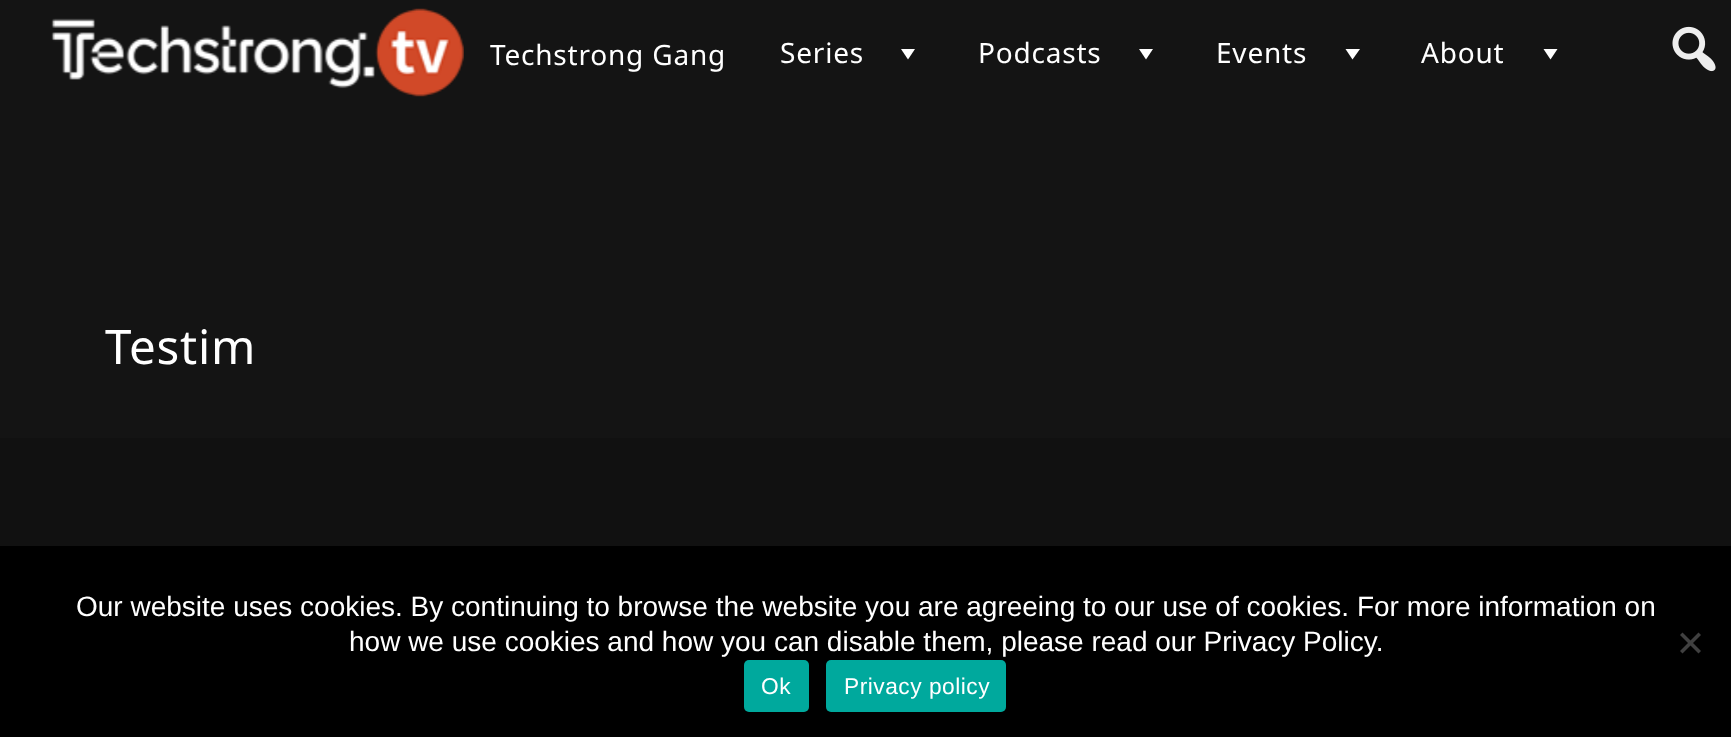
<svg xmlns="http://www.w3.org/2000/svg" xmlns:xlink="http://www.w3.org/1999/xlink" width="1731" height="737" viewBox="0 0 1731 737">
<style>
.cls-1{font:28px Noto Sans;letter-spacing:0.8px;fill:#ffffff}
.cls-2{font:47.5px Noto Sans;letter-spacing:0.8px;fill:#ffffff}
.cls-3{font:28px Liberation Sans;fill:#ffffff}
.cls-4{font:22.75px Liberation Sans;letter-spacing:0.5px;fill:#ffffff}
</style>
<rect width="100%" height="100%" fill="#141414"/>
<image xlink:href="image0.png" x="51" y="8" width="413" height="89"/>
<path fill="#ffffff" d="M915 49L908 59.5L901 49Z"/>
<path fill="#ffffff" d="M1153 49L1146 59.5L1139 49Z"/>
<path fill="#ffffff" d="M1360 49L1352.5 59.5L1345.5 49Z"/>
<path fill="#ffffff" d="M1557.5 49L1550.5 59.5L1543.5 49Z"/>
<image xlink:href="image1.png" x="1672" y="26" width="44" height="46"/>
<rect fill="#111111" x="0" y="438" width="1731" height="108"/>
<rect fill="#000000" x="0" y="546" width="1731" height="191"/>
<path fill="#404040" d="M1698.5 632.5L1701 635L1682.5 653.5L1680 651Z"/>
<path fill="#404040" d="M1680 635L1682.5 632.5L1701 651L1698.5 653.5Z"/>
<rect fill="#00a99d" x="744" y="660" width="65" height="52" rx="5"/>
<rect fill="#00a99d" x="826" y="660" width="180" height="52" rx="5"/>
<text class="cls-1" x="490" y="65">Techstrong Gang</text>
<text class="cls-1" x="780" y="63">Series</text>
<text class="cls-1" x="978" y="63">Podcasts</text>
<text class="cls-1" x="1216" y="63">Events</text>
<text class="cls-1" x="1421" y="63">About</text>
<text class="cls-2" x="105" y="364">Testim</text>
<text class="cls-3" x="76" y="616">Our website uses cookies. By continuing to browse the website you are agreeing to our use of cookies. For more information on</text>
<text class="cls-3" x="349" y="651">how we use cookies and how you can disable them, please read our Privacy Policy.</text>
<text class="cls-4" x="761" y="694">Ok</text>
<text class="cls-4" x="844" y="694">Privacy policy</text>
</svg>
